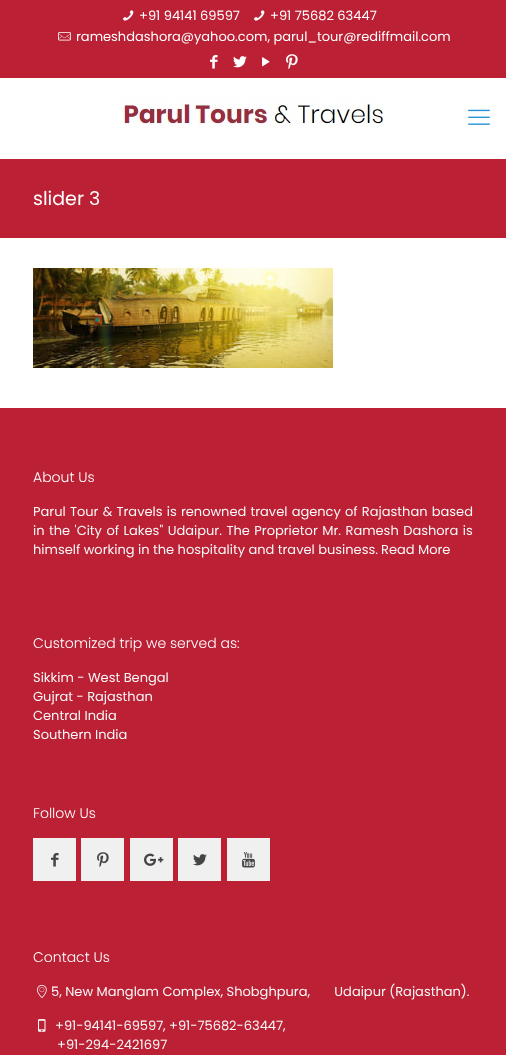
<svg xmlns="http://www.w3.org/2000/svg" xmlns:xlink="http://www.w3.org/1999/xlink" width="506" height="1055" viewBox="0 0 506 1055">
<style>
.cls-1{font:13px Poppins;fill:#ffffff}
.cls-2{font:19px Poppins;fill:#ffffff}
.cls-3{font:300 14px Poppins;fill:#ffffff}
.cls-4{font:13px Poppins;fill:#f7f7f7}
</style>
<rect width="100%" height="100%" fill="#ffffff"/>
<rect fill="#bc2035" x="0" y="0" width="506" height="78"/>
<image xlink:href="image0.png" x="123" y="10" width="11" height="11"/>
<image xlink:href="image0.png" x="254" y="10" width="11" height="11"/>
<image xlink:href="image1.png" x="58" y="32" width="13" height="9"/>
<image xlink:href="image2.png" x="210" y="55" width="8" height="14"/>
<image xlink:href="image3.png" x="233" y="56" width="14" height="12"/>
<image xlink:href="image4.png" x="262" y="57" width="8" height="10"/>
<image xlink:href="image5.png" x="286" y="54" width="12" height="16"/>
<image xlink:href="image6.png" x="121" y="96" width="265" height="32"/>
<image xlink:href="image7.png" x="468" y="109" width="22" height="16"/>
<rect fill="#bc2035" x="0" y="159" width="506" height="79"/>
<image xlink:href="image8.png" x="33" y="268" width="300" height="100"/>
<rect fill="#bc2035" x="0" y="408" width="506" height="647"/>
<rect fill="#f0f0f0" x="33" y="838" width="43" height="43"/>
<image xlink:href="image9.png" x="51" y="853" width="8" height="14"/>
<rect fill="#f0f0f0" x="81" y="838" width="43" height="43"/>
<image xlink:href="image10.png" x="97" y="852" width="12" height="16"/>
<rect fill="#f0f0f0" x="130" y="838" width="43" height="43"/>
<image xlink:href="image11.png" x="144" y="853" width="20" height="13"/>
<rect fill="#f0f0f0" x="178" y="838" width="43" height="43"/>
<image xlink:href="image12.png" x="193" y="854" width="14" height="12"/>
<rect fill="#f0f0f0" x="227" y="838" width="43" height="43"/>
<image xlink:href="image13.png" x="242" y="852" width="13" height="16"/>
<image xlink:href="image14.png" x="37" y="984" width="10" height="14"/>
<image xlink:href="image15.png" x="38" y="1019" width="8" height="13"/>
<text class="cls-1" x="139" y="20">+91 94141 69597</text>
<text class="cls-1" x="270" y="20">+91 75682 63447</text>
<text class="cls-1" x="76" y="41">rameshdashora@yahoo.com, parul_tour@rediffmail.com</text>
<text class="cls-2" x="33" y="205">slider 3</text>
<text class="cls-3" x="33" y="482">About Us</text>
<text class="cls-4"><tspan x="33" y="516" word-spacing="0.75">Parul Tour &amp; Travels is renowned travel agency of Rajasthan based</tspan><tspan x="33" y="535" word-spacing="1">in the 'City of Lakes" Udaipur. The Proprietor Mr. Ramesh Dashora is</tspan><tspan x="33" y="554">himself working in the hospitality and travel business.</tspan></text>
<text class="cls-4" x="381" y="554">Read More</text>
<text class="cls-3" x="33" y="648">Customized trip we served as:</text>
<text class="cls-4"><tspan x="33" y="682">Sikkim - West Bengal</tspan><tspan x="33" y="701">Gujrat - Rajasthan</tspan><tspan x="33" y="720">Central India</tspan><tspan x="33" y="739">Southern India</tspan></text>
<text class="cls-3" x="33" y="818">Follow Us</text>
<text class="cls-3" x="33" y="962">Contact Us</text>
<text class="cls-4" xml:space="preserve" x="51" y="996">5, New Manglam Complex, Shobghpura,       Udaipur (Rajasthan).</text>
<text class="cls-4" x="55" y="1030">+91-94141-69597</text>
<text class="cls-4" x="163" y="1030">,</text>
<text class="cls-4" x="169" y="1030">+91-75682-63447</text>
<text class="cls-4" x="283" y="1030">,</text>
<text class="cls-4" x="57" y="1049">+91-294-2421697</text>
</svg>
